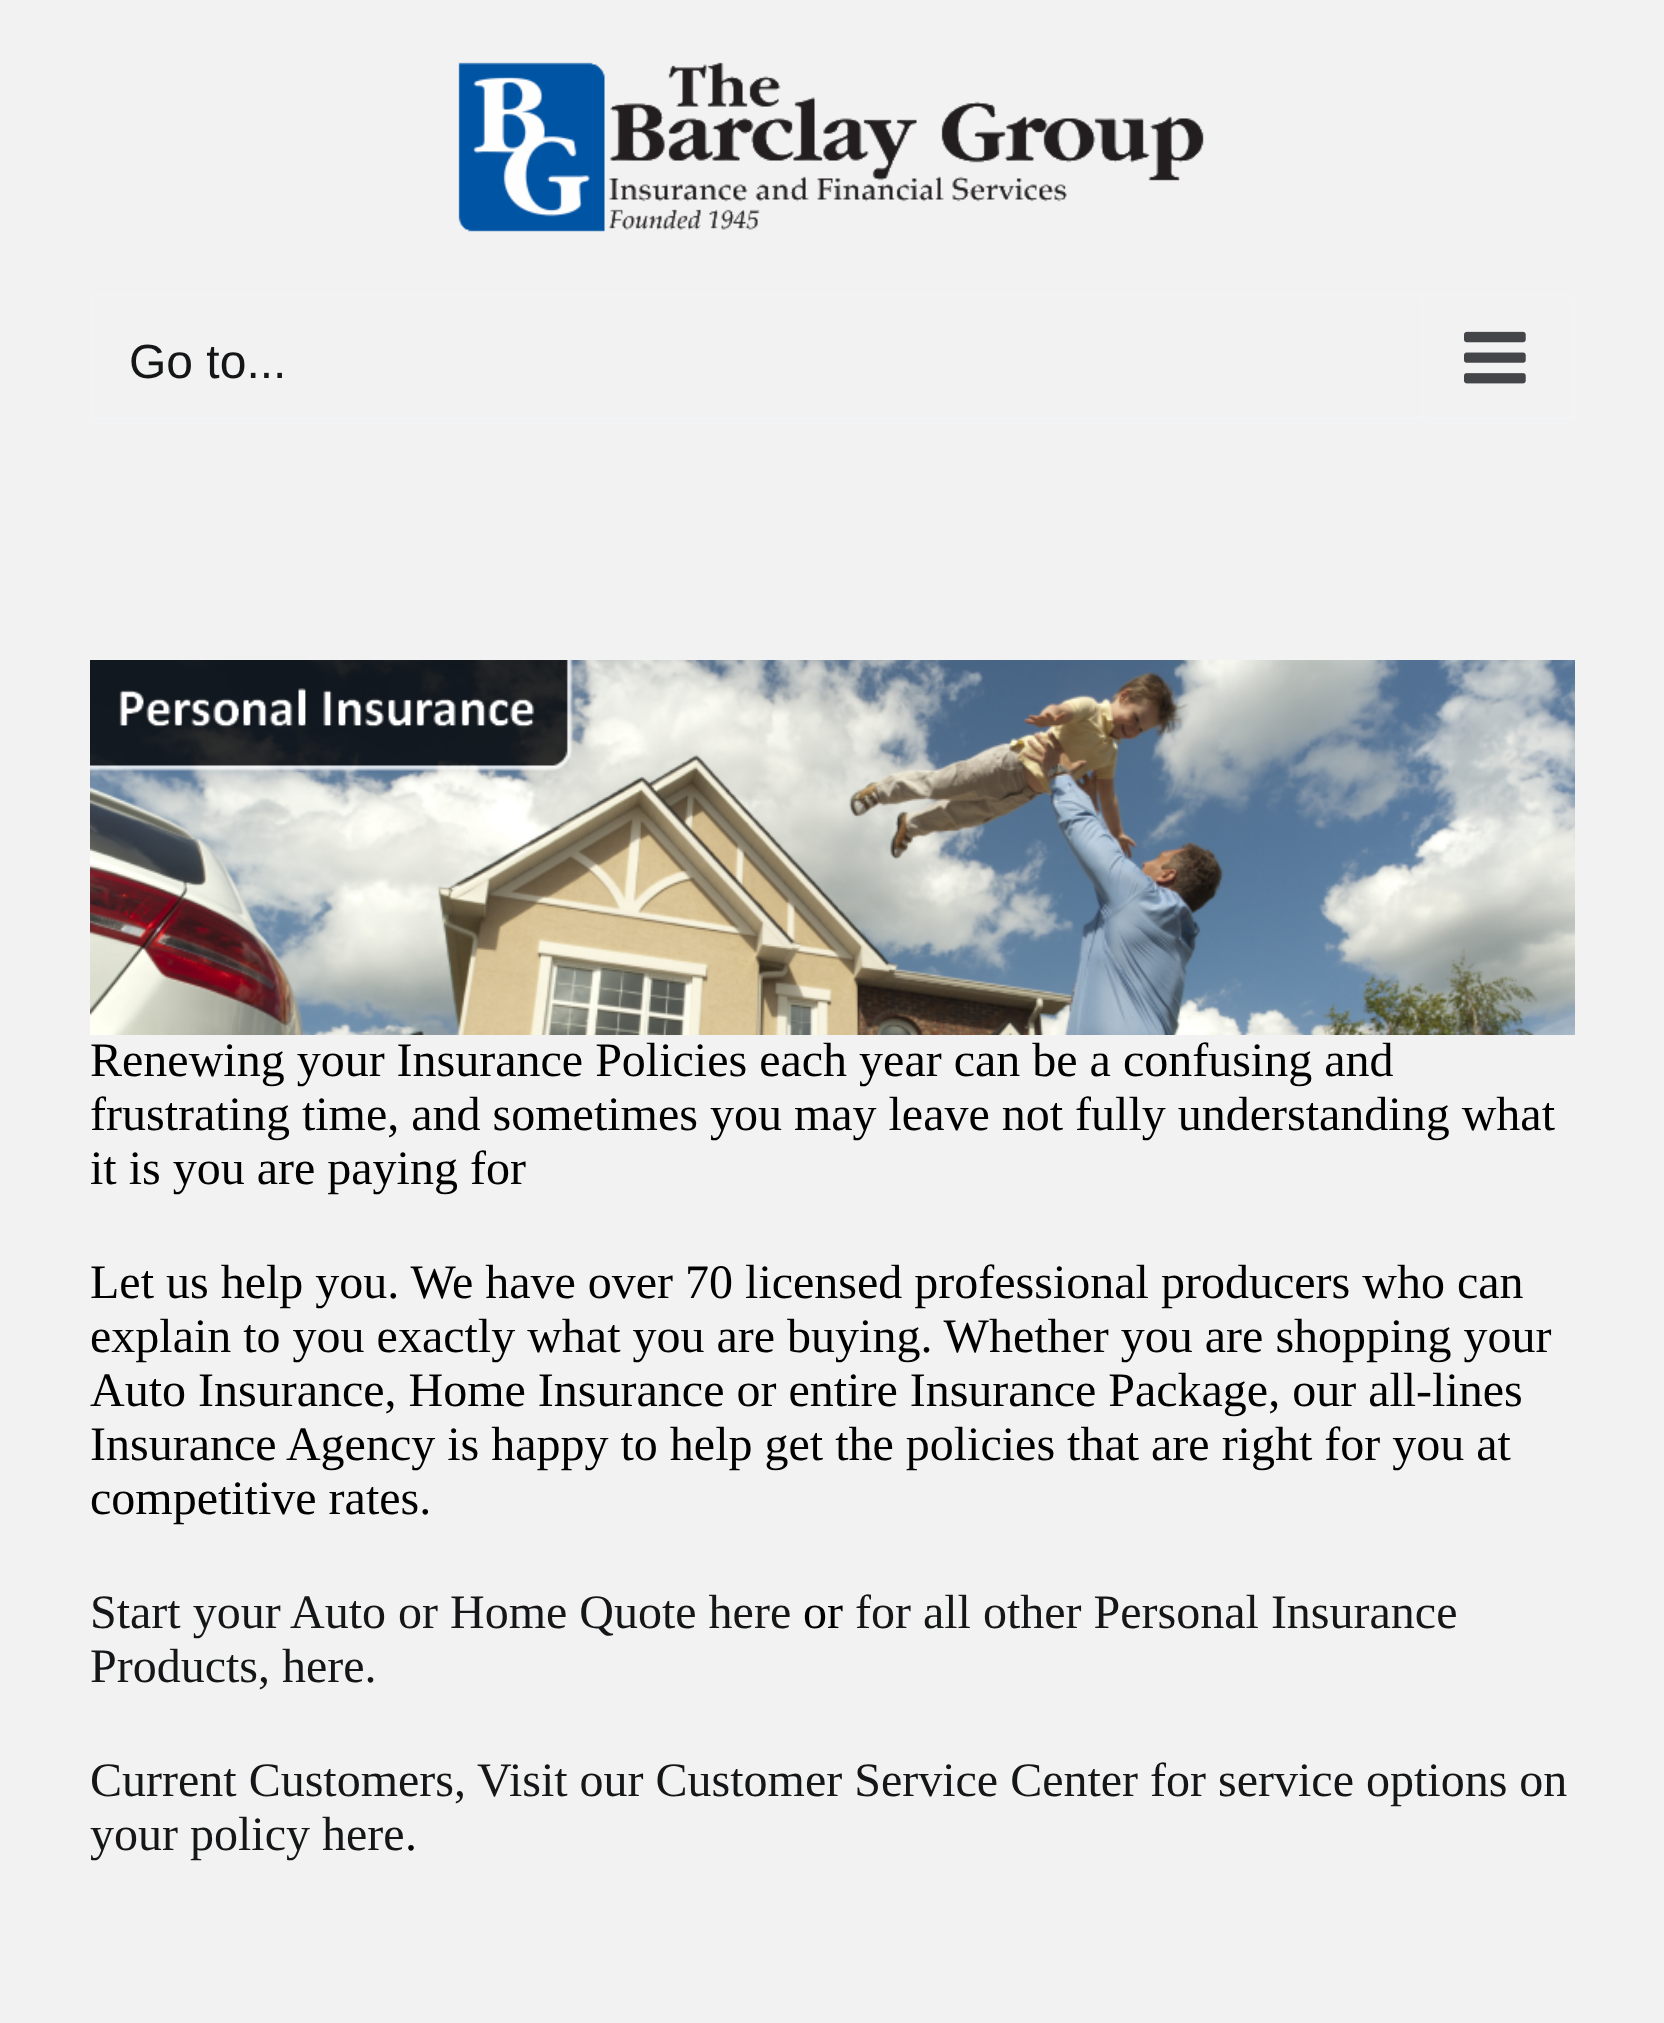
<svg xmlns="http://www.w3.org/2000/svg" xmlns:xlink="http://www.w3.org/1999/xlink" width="1664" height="2023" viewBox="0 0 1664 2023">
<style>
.cls-1{font:48px Liberation Sans;fill:#141617}
.cls-2{font:48px Liberation Serif;fill:#000000}
.cls-3{font:48px Liberation Serif;fill:#141617}
</style>
<rect width="100%" height="100%" fill="#f2f2f2"/>
<image xlink:href="image0.png" x="458" y="62" width="746" height="170"/>
<rect fill="none" stroke="#f2f3f5" stroke-width="3" x="91.5" y="295.5" width="1482" height="123"/>
<rect fill="#f2f3f5" x="1422" y="297" width="3" height="120"/>
<image xlink:href="image1.png" x="1464" y="331" width="62" height="53"/>
<image xlink:href="image2.png" x="90" y="660" width="1485" height="375"/>
<text class="cls-1" x="129" y="378">Go to...</text>
<text class="cls-2"><tspan x="90" y="1076">Renewing your Insurance Policies each year can be a confusing and</tspan><tspan x="90" y="1130">frustrating time, and sometimes you may leave not fully understanding what</tspan><tspan x="90" y="1184">it is you are paying for</tspan></text>
<text class="cls-2"><tspan x="90" y="1298">Let us help you. We have over 70 licensed professional producers who can</tspan><tspan x="90" y="1352">explain to you exactly what you are buying. Whether you are shopping your</tspan><tspan x="90" y="1406">Auto Insurance, Home Insurance or entire Insurance Package, our all-lines</tspan><tspan x="90" y="1460">Insurance Agency is happy to help get the policies that are right for you at</tspan><tspan x="90" y="1514">competitive rates.</tspan></text>
<text class="cls-3" x="90" y="1628">Start your Auto or Home Quote here</text>
<text class="cls-2" x="803" y="1628">or</text>
<text class="cls-3" x="855" y="1628">for all other Personal Insurance</text>
<text class="cls-3" x="90" y="1682">Products, here.</text>
<text class="cls-3"><tspan x="90" y="1796">Current Customers, Visit our Customer Service Center for service options on</tspan><tspan x="90" y="1850">your policy here</tspan></text>
<text class="cls-2" x="405" y="1850">.</text>
</svg>
